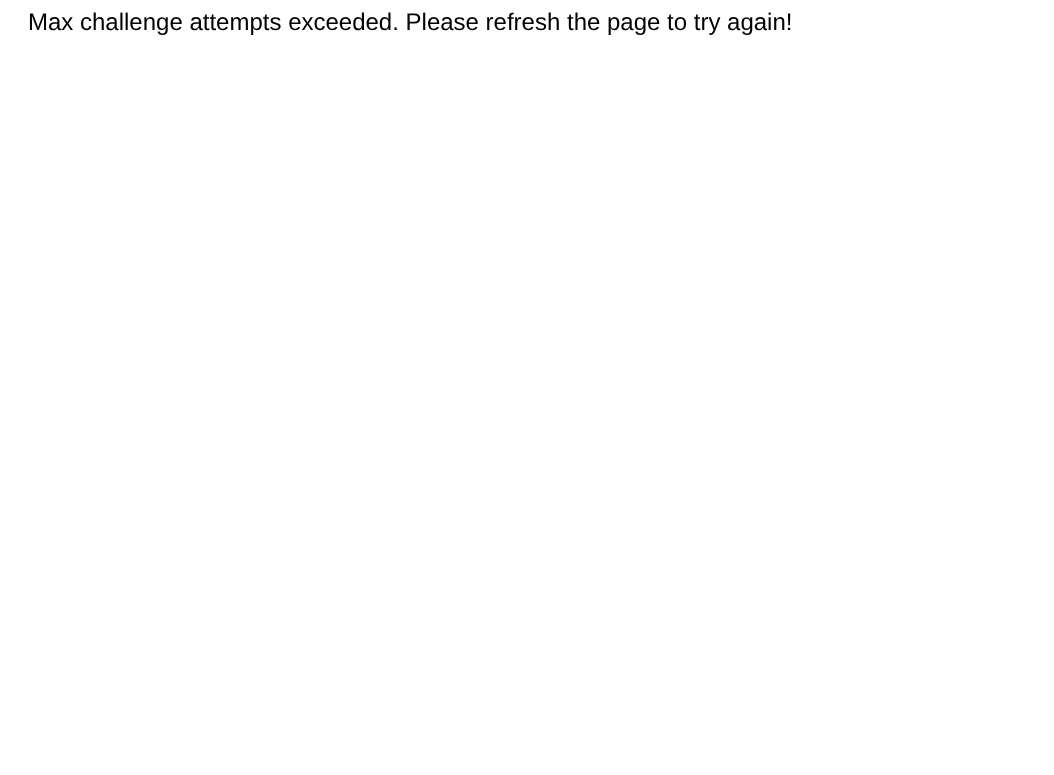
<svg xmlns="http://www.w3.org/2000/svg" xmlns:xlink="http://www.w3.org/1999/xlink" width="1054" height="775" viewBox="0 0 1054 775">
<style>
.cls-1{font:24px Liberation Sans;fill:#000000}
</style>
<rect width="100%" height="100%" fill="#ffffff"/>
<text class="cls-1" x="28" y="30">Max challenge attempts exceeded. Please refresh the page to try again!</text>
</svg>
